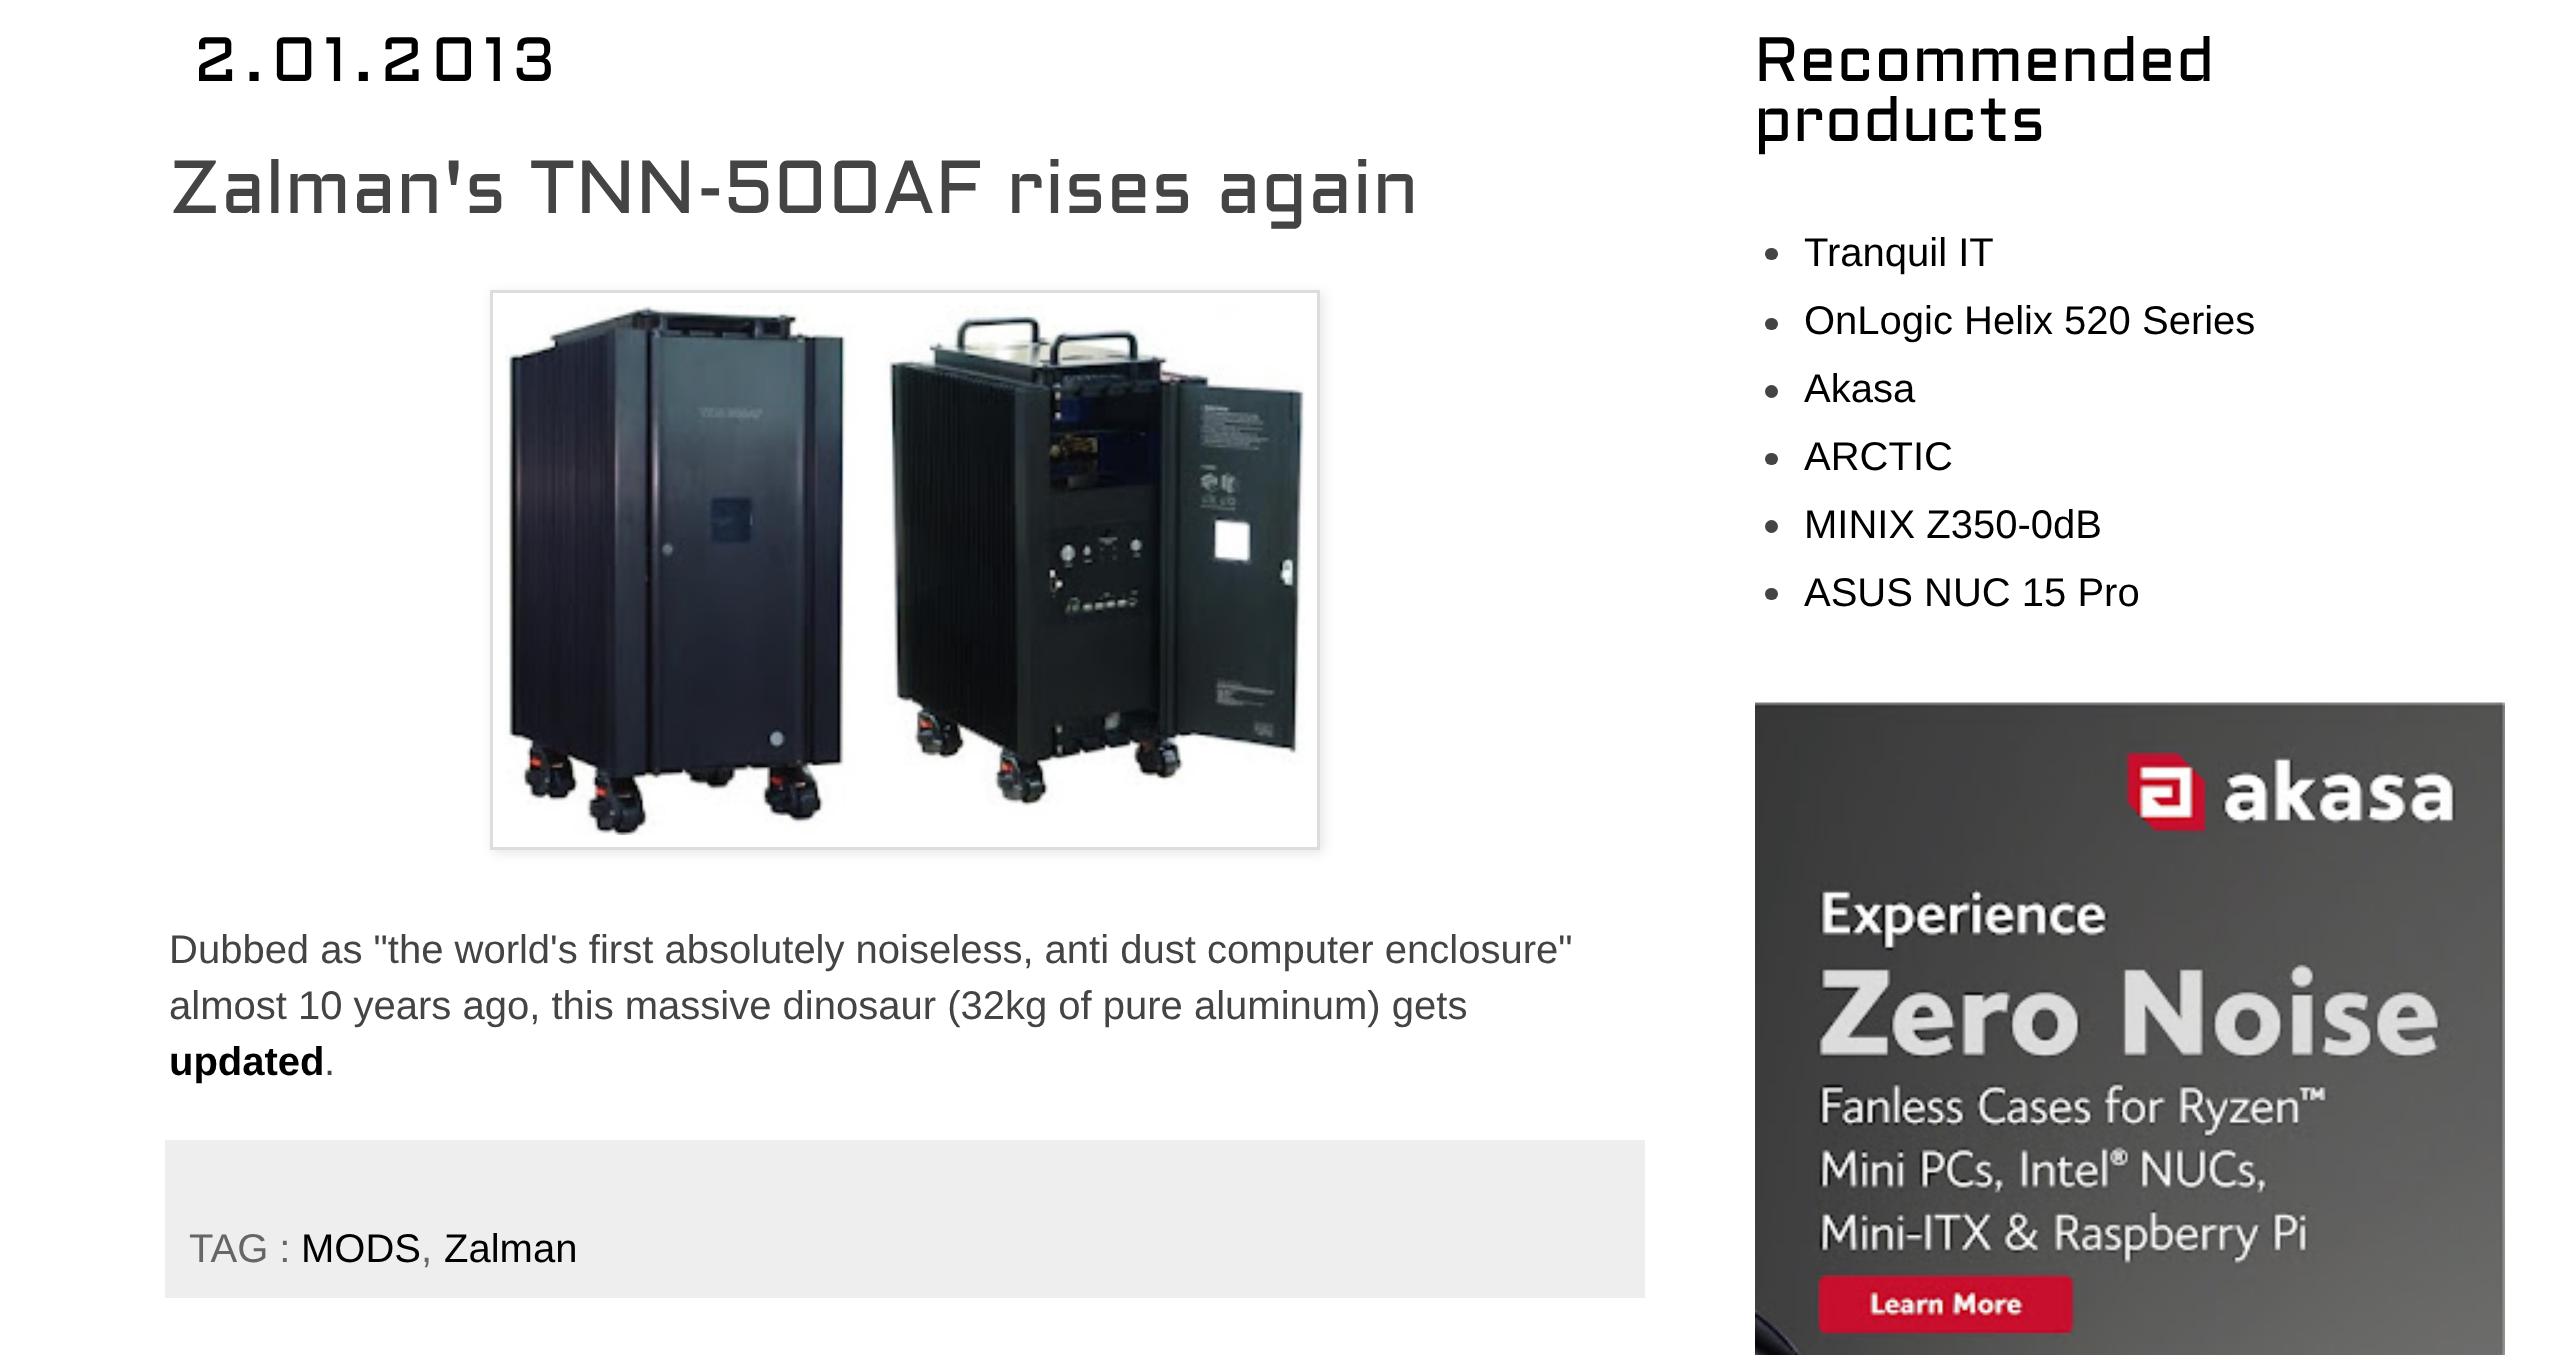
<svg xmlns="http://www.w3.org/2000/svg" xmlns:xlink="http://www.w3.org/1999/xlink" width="2557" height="1355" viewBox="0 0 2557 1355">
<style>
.cls-1{font:62.5px Aldrich;letter-spacing:7.5px;fill:#000000}
.cls-2{font:75px Aldrich;fill:#444444}
.cls-3{font:40px Liberation Sans;fill:#444444}
.cls-4{font:bold 40px Liberation Sans;fill:#000000}
.cls-5{font:40px Liberation Sans;fill:#666666}
.cls-6{font:40px Liberation Sans;fill:#000000}
.cls-7{font:62.5px Aldrich;fill:#000000}
</style>
<defs>
<clipPath id="clip1"><path d="M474 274H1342V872H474ZM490 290H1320V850H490Z" clip-rule="evenodd"/></clipPath>
</defs>
<rect width="100%" height="100%" fill="#ffffff"/>
<g clip-path="url(#clip1)">
<rect fill="#000000" fill-opacity="0.1" filter="blur(6px)" x="493" y="293" width="830" height="560"/>
</g>
<rect fill="none" stroke="#dddddd" stroke-width="3" x="491.5" y="291.5" width="827" height="557"/>
<image xlink:href="image0.png" x="505" y="305" width="800" height="530"/>
<rect fill="#eeeeee" x="165" y="1140" width="1480" height="158"/>
<rect fill="#444444" x="1765" y="248" width="13" height="12" rx="6"/>
<rect fill="#444444" x="1765" y="318" width="13" height="12" rx="6"/>
<circle fill="#444444" cx="1771.5" cy="391.5" r="6.5"/>
<rect fill="#444444" x="1765" y="453" width="13" height="12" rx="6"/>
<circle fill="#444444" cx="1771.5" cy="526.5" r="6.5"/>
<rect fill="#444444" x="1765" y="588" width="13" height="12" rx="6"/>
<image xlink:href="image1.png" x="1755" y="702" width="750" height="653"/>
<text class="cls-1" x="194" y="81">2.01.2013</text>
<text class="cls-2" x="169" y="213">Zalman's TNN-500AF rises again</text>
<text class="cls-3"><tspan x="169" y="963">Dubbed as "the world's first absolutely noiseless, anti dust computer enclosure"</tspan><tspan x="169" y="1019">almost 10 years ago, this massive dinosaur (32kg of pure aluminum) gets</tspan></text>
<text class="cls-4" x="169" y="1075">updated</text>
<text class="cls-3" x="324" y="1075">.</text>
<text class="cls-5" x="189" y="1262">TAG :</text>
<text class="cls-6" x="301" y="1262">MODS</text>
<text class="cls-5" x="421" y="1262">,</text>
<text class="cls-6" x="444" y="1262">Zalman</text>
<text class="cls-7"><tspan x="1754" y="81">Recommended</tspan><tspan x="1754" y="141">products</tspan></text>
<text class="cls-6"><tspan x="1804" y="266">Tranquil IT</tspan><tspan x="1804" y="334">OnLogic Helix 520 Series</tspan><tspan x="1804" y="402">Akasa</tspan><tspan x="1804" y="470">ARCTIC</tspan><tspan x="1804" y="538">MINIX Z350-0dB</tspan><tspan x="1804" y="606">ASUS NUC 15 Pro</tspan></text>
</svg>
